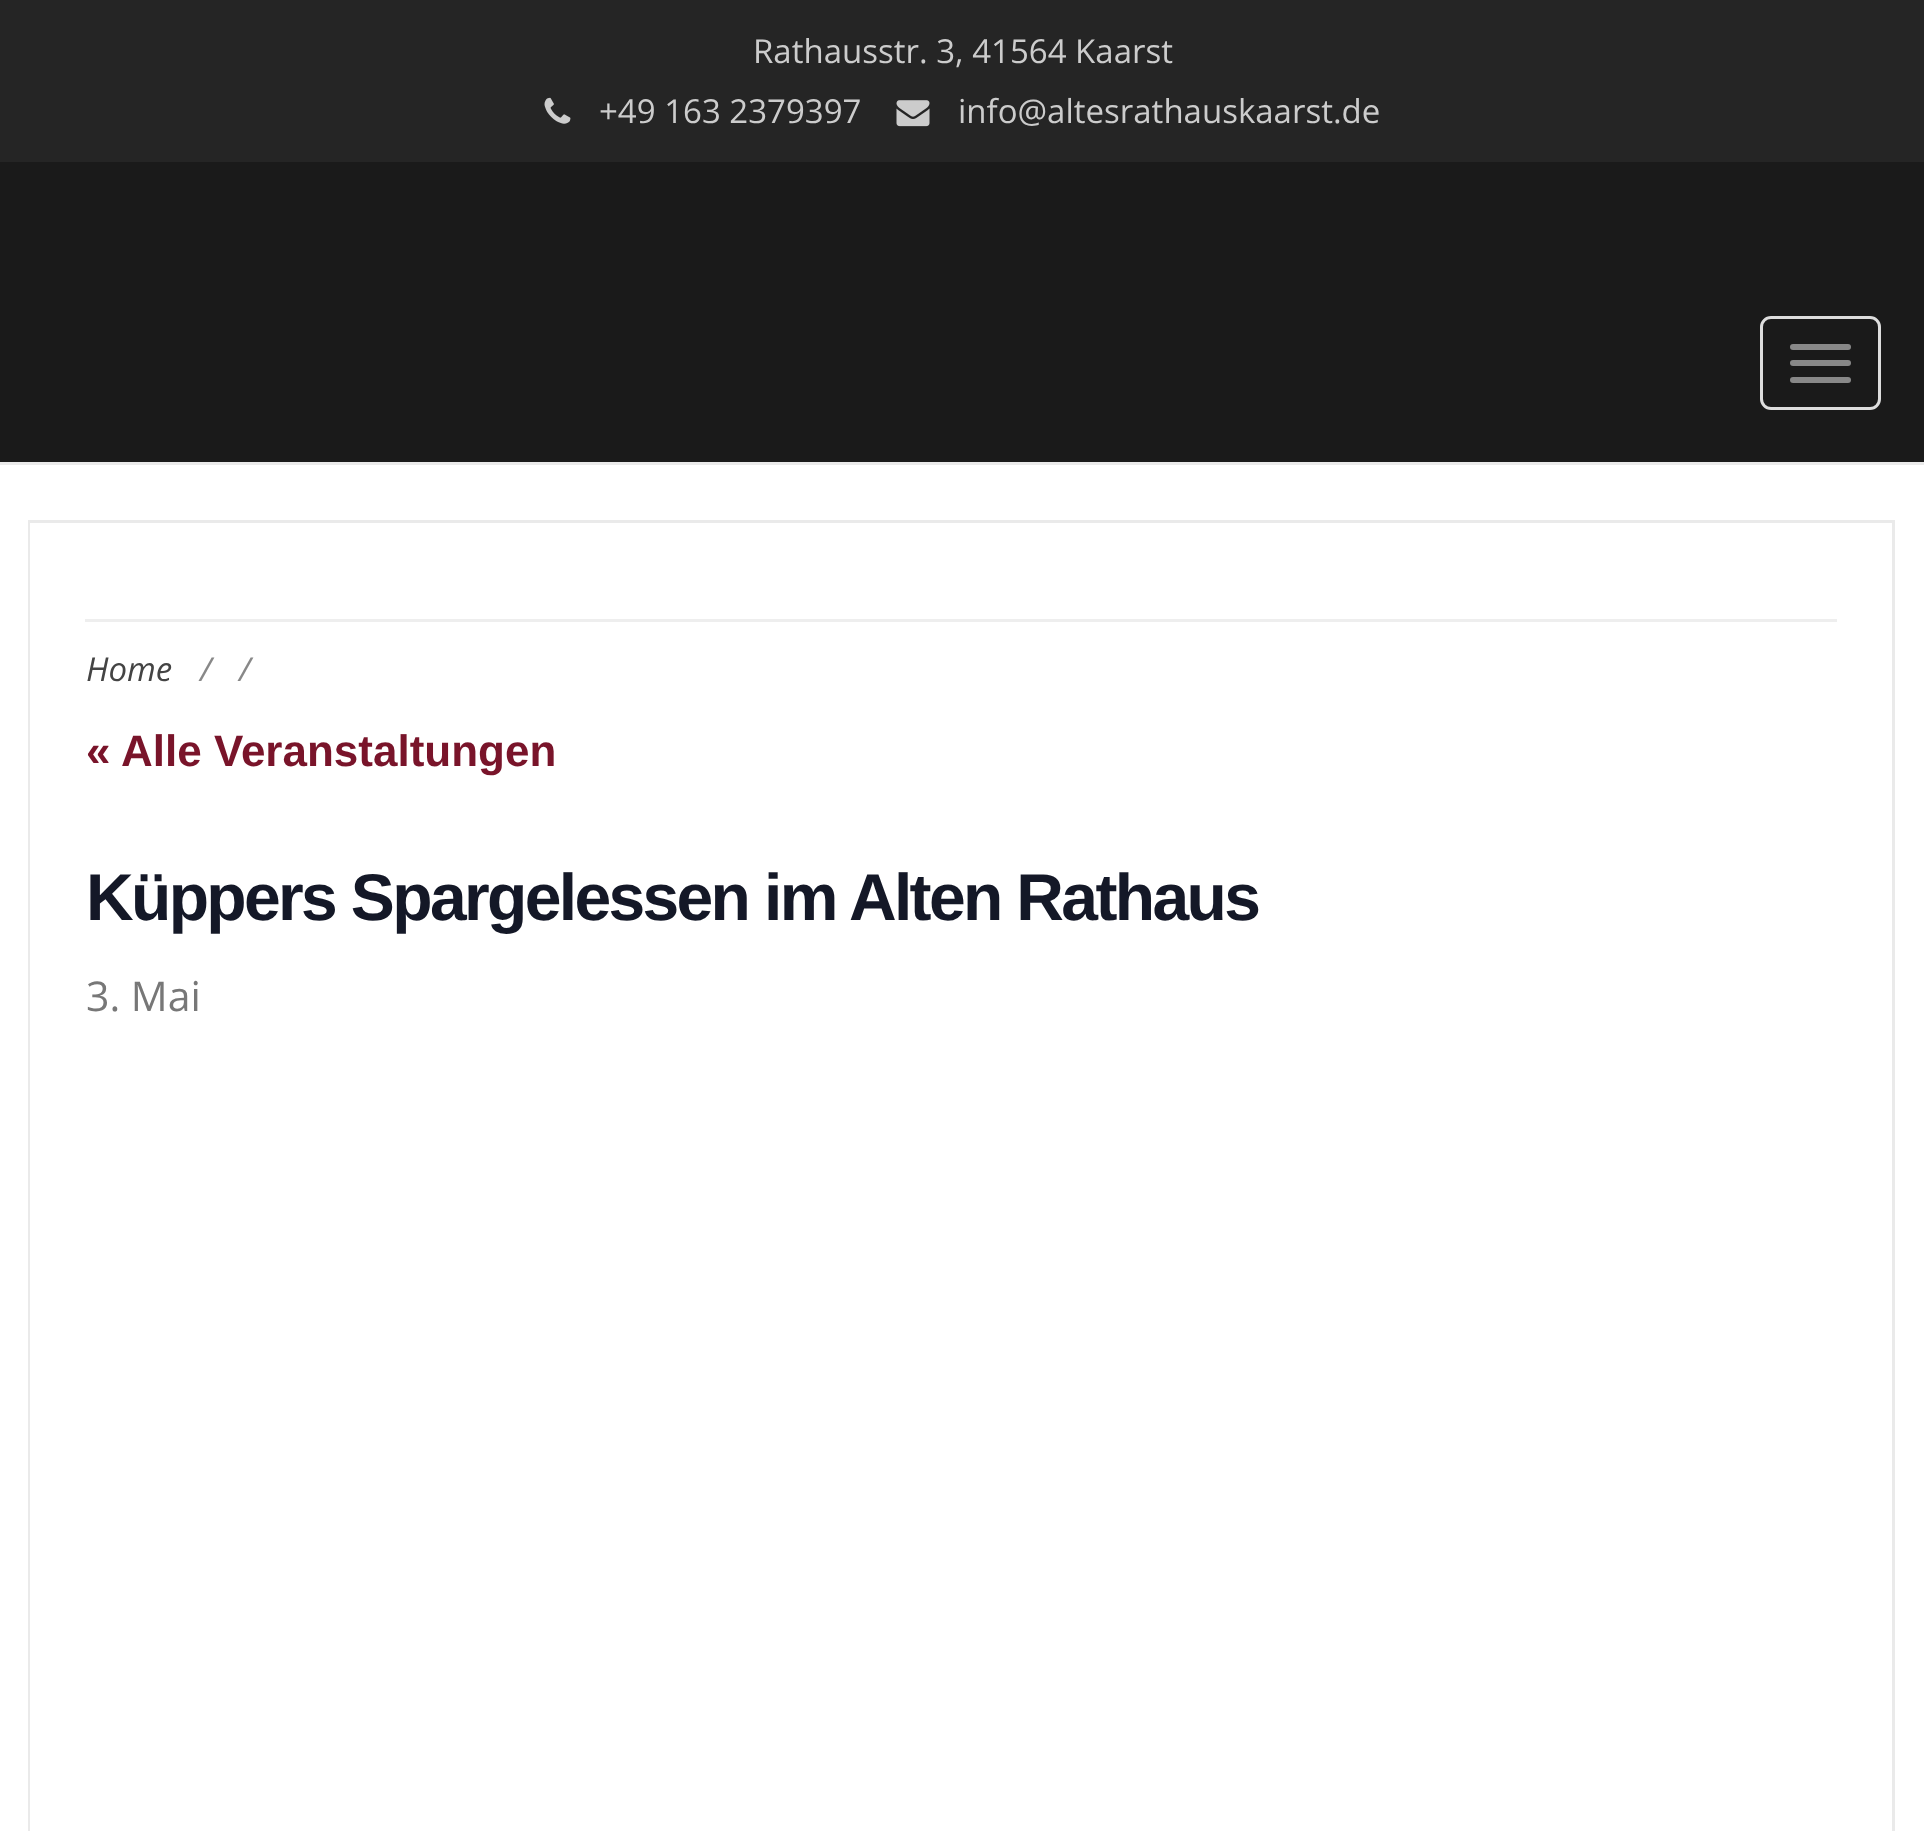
<svg xmlns="http://www.w3.org/2000/svg" xmlns:xlink="http://www.w3.org/1999/xlink" width="1924" height="1831" viewBox="0 0 1924 1831">
<style>
.cls-1{font:33px Open Sans;fill:#cccccc}
.cls-2{font:italic 33px Open Sans;fill:#444444}
.cls-3{font:italic 33px Open Sans;fill:#888888}
.cls-4{font:bold 44px Liberation Sans;fill:#79142a}
.cls-5{font:bold 66px Liberation Sans;letter-spacing:-2.65px;fill:#141827}
.cls-6{font:41px Open Sans;fill:#777777}
</style>
<rect width="100%" height="100%" fill="#ffffff"/>
<rect fill="#252525" x="0" y="0" width="1924" height="162"/>
<image xlink:href="image0.png" x="544" y="97" width="27" height="27"/>
<image xlink:href="image1.png" x="896" y="100" width="34" height="27"/>
<rect fill="#1a1a1a" x="0" y="162" width="1924" height="300"/>
<rect fill="#eaeaea" x="0" y="462" width="1924" height="3"/>
<rect fill="none" stroke="#dddddd" stroke-width="3" x="1761.5" y="317.5" width="118" height="91" rx="9.5"/>
<rect fill="#888888" x="1790" y="344" width="61" height="6" rx="3"/>
<rect fill="#888888" x="1790" y="360" width="61" height="6" rx="3"/>
<rect fill="#888888" x="1790" y="377" width="61" height="6" rx="3"/>
<rect fill="none" stroke="#eaeaea" stroke-width="3" x="29.5" y="521.5" width="1864" height="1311"/>
<rect fill="#ffffff" x="30" y="523" width="1" height="1308"/>
<rect fill="#eeeeee" x="85" y="619" width="1752" height="3"/>
<text class="cls-1" x="753" y="63">Rathausstr. 3, 41564 Kaarst</text>
<text class="cls-1" x="599" y="123">+49 163 2379397</text>
<text class="cls-1" x="958" y="123">info@altesrathauskaarst.de</text>
<text class="cls-2" x="86" y="681">Home</text>
<text class="cls-3" x="200" y="681">/</text>
<text class="cls-3" x="239" y="681">/</text>
<text class="cls-4" x="86" y="766">« Alle Veranstaltungen</text>
<text class="cls-5" x="86" y="920">Küppers Spargelessen im Alten Rathaus</text>
<text class="cls-6" x="86" y="1011">3. Mai</text>
</svg>
